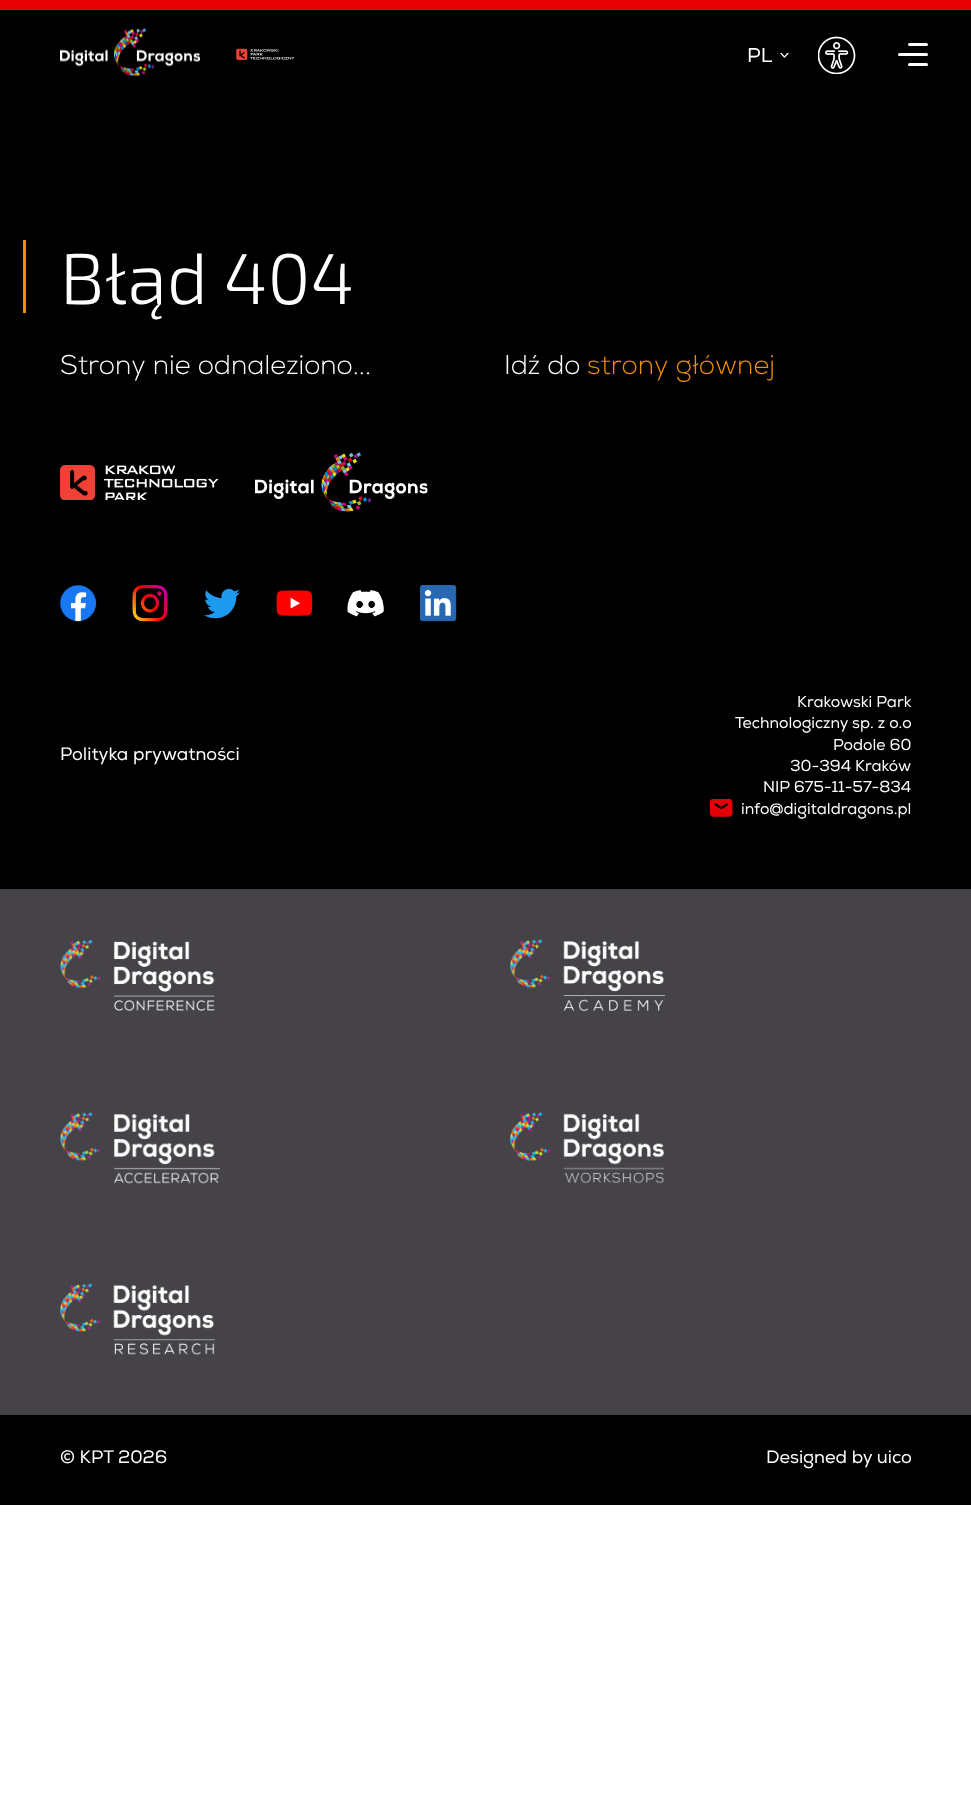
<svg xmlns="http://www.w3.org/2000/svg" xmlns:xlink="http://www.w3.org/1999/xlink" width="971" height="1813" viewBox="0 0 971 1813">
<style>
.cls-1{font:20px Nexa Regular;fill:#ffffff}
.cls-2{font:300 72px 'Exo 2';fill:#ffffff}
.cls-3{font:27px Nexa;fill:#ffffff}
.cls-4{font:27px Nexa;fill:#f28e00}
.cls-5{font:18px Nexa Regular;fill:#ffffff}
.cls-6{font:15.75px Nexa Regular;fill:#ffffff}
</style>
<rect width="100%" height="100%" fill="#ffffff"/>
<rect fill="#e60004" x="0" y="0" width="971" height="10"/>
<rect fill="#000000" x="0" y="10" width="971" height="879"/>
<image xlink:href="image0.png" x="60" y="28" width="140" height="49"/>
<image xlink:href="image1.png" x="236" y="48" width="58" height="12"/>
<image xlink:href="image2.png" x="780" y="53" width="9" height="5"/>
<image xlink:href="image3.png" x="818" y="36" width="38" height="38"/>
<rect fill="#ffffff" x="908" y="43" width="20" height="3" rx="1.5"/>
<rect fill="#ffffff" x="898" y="53" width="30" height="3" rx="1.5"/>
<rect fill="#ffffff" x="908" y="63" width="20" height="3" rx="1.5"/>
<rect fill="#f28e00" x="23" y="240" width="3" height="73"/>
<image xlink:href="image4.png" x="60" y="465" width="159" height="35"/>
<image xlink:href="image5.png" x="255" y="452" width="173" height="60"/>
<image xlink:href="image6.png" x="60" y="585" width="37" height="37"/>
<image xlink:href="image7.png" x="132" y="585" width="36" height="37"/>
<image xlink:href="image8.png" x="204" y="588" width="36" height="31"/>
<image xlink:href="image9.png" x="276" y="590" width="37" height="26"/>
<image xlink:href="image10.png" x="347" y="590" width="37" height="27"/>
<image xlink:href="image11.png" x="420" y="585" width="37" height="37"/>
<image xlink:href="image12.png" x="710" y="799" width="23" height="18"/>
<rect fill="#454347" x="0" y="889" width="971" height="526"/>
<image xlink:href="image13.png" x="60" y="939" width="155" height="72"/>
<image xlink:href="image14.png" x="510" y="939" width="155" height="73"/>
<image xlink:href="image15.png" x="60" y="1112" width="160" height="72"/>
<image xlink:href="image16.png" x="510" y="1112" width="155" height="72"/>
<image xlink:href="image17.png" x="60" y="1283" width="155" height="72"/>
<rect fill="#000000" x="0" y="1415" width="971" height="90"/>
<text class="cls-1" x="747" y="62">PL</text>
<text class="cls-2" x="60" y="304">Błąd 404</text>
<text class="cls-3" x="60" y="374">Strony nie odnaleziono...</text>
<text class="cls-3" x="504" y="374">Idź do</text>
<text class="cls-4" x="587" y="374">strony głównej</text>
<text class="cls-5" x="60" y="760">Polityka prywatności</text>
<text class="cls-6" x="797" y="707">Krakowski Park</text>
<text class="cls-6" x="735" y="728">Technologiczny sp. z o.o</text>
<text class="cls-6" x="833" y="750">Podole 60</text>
<text class="cls-6" x="790" y="771">30-394 Kraków</text>
<text class="cls-6" x="763" y="792">NIP 675-11-57-834</text>
<text class="cls-6" x="741" y="814">info@digitaldragons.pl</text>
<text class="cls-5" x="60" y="1463">© KPT 2026</text>
<text class="cls-5" x="766" y="1463">Designed by uico</text>
</svg>
